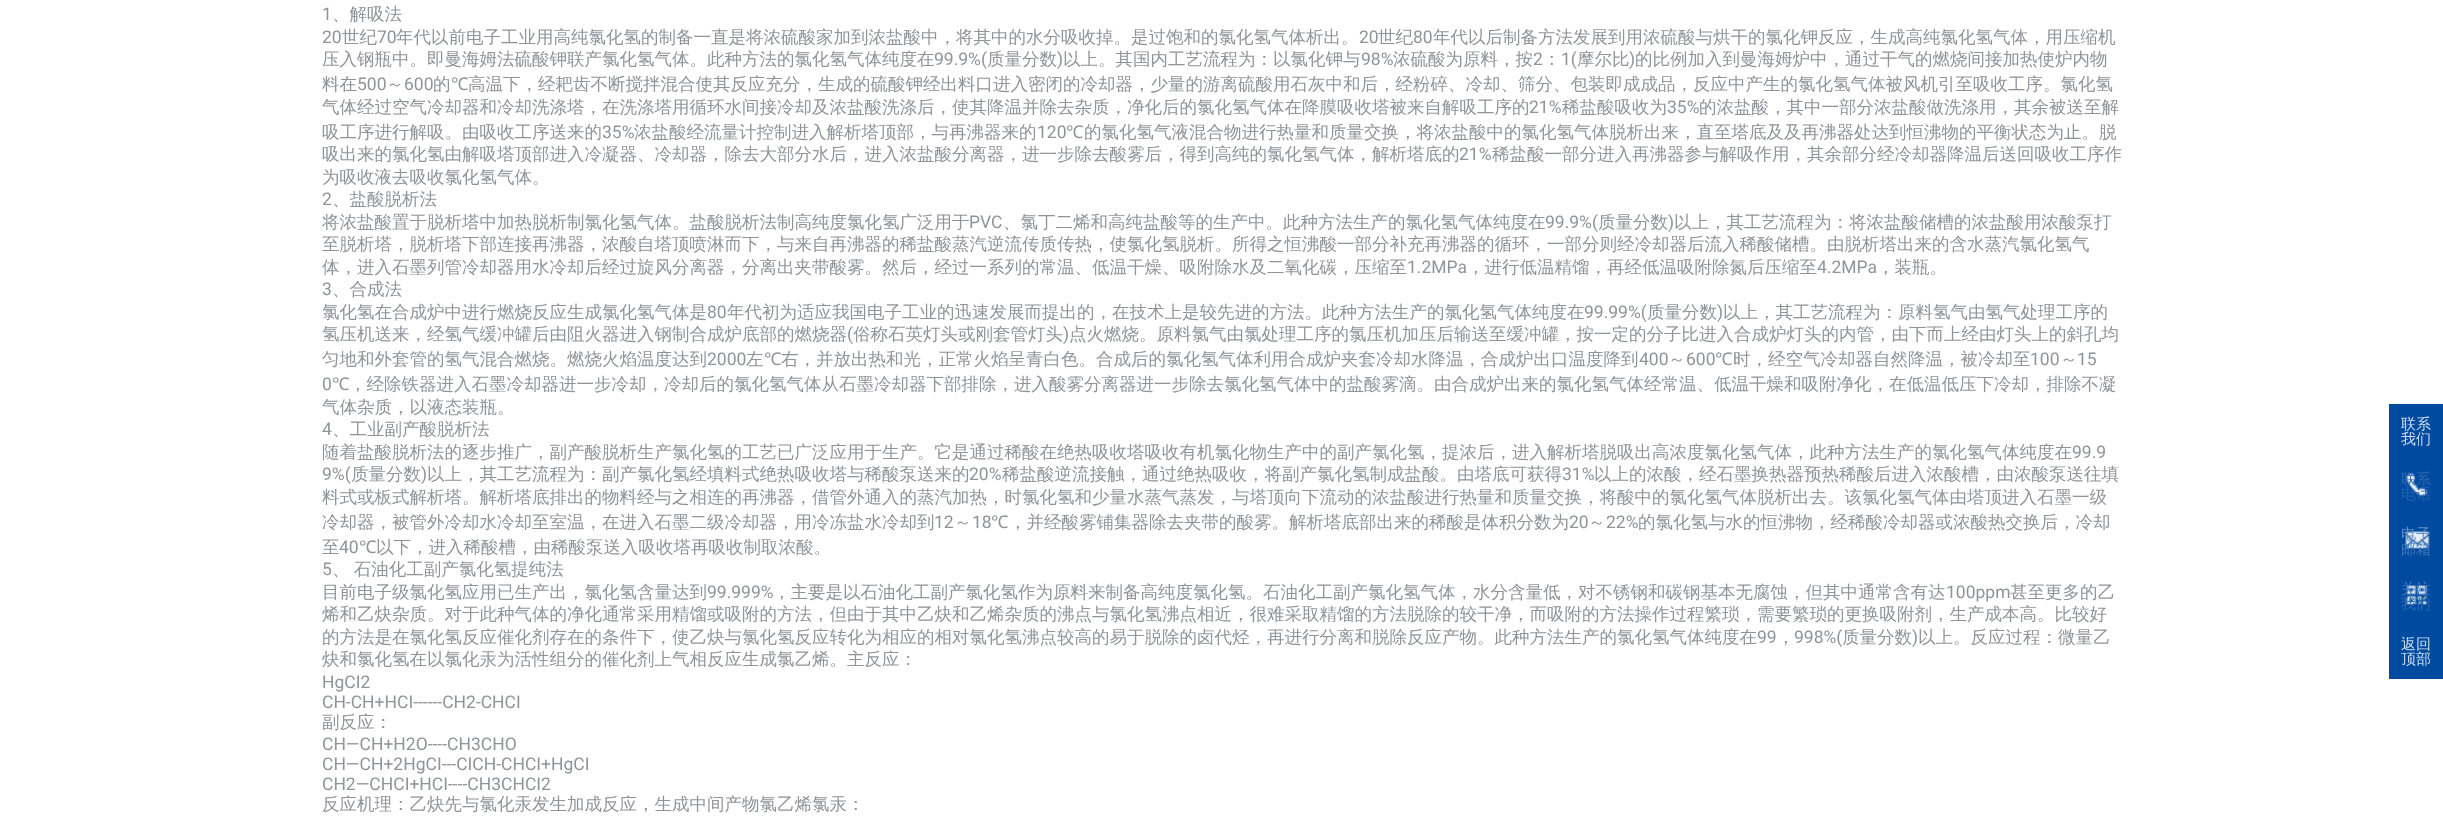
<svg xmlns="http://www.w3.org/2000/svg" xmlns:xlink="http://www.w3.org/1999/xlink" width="2443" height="828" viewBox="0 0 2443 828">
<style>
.cls-1{font:17.5px Roboto;fill:#909399}
.cls-2{font:500 17.5px WenQuanYi Zen Hei;fill:#909399}
.cls-3{font:17.5px Noto Sans;fill:#909399}
.cls-4{font:500 15px WenQuanYi Zen Hei;fill:#ccdbec}
.cls-5{font:500 15px WenQuanYi Zen Hei;fill:#2b68af}
.cls-6{font:500 15px WenQuanYi Zen Hei;fill:#2262ac}
.cls-7{font:500 15px WenQuanYi Zen Hei;fill:#6491c5}
.cls-8{font:500 15px WenQuanYi Zen Hei;fill:#4077b7}
</style>
<rect width="100%" height="100%" fill="#ffffff"/>
<rect fill="#004a9f" x="2389" y="404" width="54" height="275"/>
<image xlink:href="image0.png" x="2406" y="473" width="22" height="24"/>
<image xlink:href="image1.png" x="2405" y="531" width="25" height="18"/>
<image xlink:href="image2.png" x="2406" y="585" width="22" height="20"/>
<text class="cls-1" x="322" y="20">1</text>
<text class="cls-2" x="332" y="20">、解吸法</text>
<text class="cls-1" x="322" y="43">20</text>
<text class="cls-2" x="342" y="43">世纪</text>
<text class="cls-1" x="377" y="43">70</text>
<text class="cls-2" x="396" y="43">年代以前电子工业用高纯氯化氢的制备一直是将浓硫酸家加到浓盐酸中，将其中的水分吸收掉。是过饱和的氯化氢气体析出。</text>
<text class="cls-1" x="1359" y="43">20</text>
<text class="cls-2" x="1378" y="43">世纪</text>
<text class="cls-1" x="1413" y="43">80</text>
<text class="cls-2" x="1433" y="43">年代以后制备方法发展到用浓硫酸与烘干的氯化钾反应，生成高纯氯化氢气体，用压缩机</text>
<text class="cls-2" x="322" y="65">压入钢瓶中。即曼海姆法硫酸钾联产氯化氢气体。此种方法的氯化氢气体纯度在</text>
<text class="cls-1" x="934" y="65">99.9%(</text>
<text class="cls-2" x="987" y="65">质量分数</text>
<text class="cls-1" x="1057" y="65">)</text>
<text class="cls-2" x="1063" y="65">以上。其国内工艺流程为：以氯化钾与</text>
<text class="cls-1" x="1361" y="65">98%</text>
<text class="cls-2" x="1393" y="65">浓硫酸为原料，按</text>
<text class="cls-1" x="1533" y="65">2</text>
<text class="cls-2" x="1543" y="65">：</text>
<text class="cls-1" x="1561" y="65">1(</text>
<text class="cls-2" x="1577" y="65">摩尔比</text>
<text class="cls-1" x="1629" y="65">)</text>
<text class="cls-2" x="1635" y="65">的比例加入到曼海姆炉中，通过干气的燃烧间接加热使炉内物</text>
<text class="cls-2" x="322" y="90">料在</text>
<text class="cls-1" x="357" y="90">500</text>
<text class="cls-2" x="386" y="90">～</text>
<text class="cls-1" x="404" y="90">600</text>
<text class="cls-2" x="433" y="90">的</text>
<text class="cls-3" x="451" y="90">℃</text>
<text class="cls-2" x="468" y="90">高温下，经耙齿不断搅拌混合使其反应充分，生成的硫酸钾经出料口进入密闭的冷却器，少量的游离硫酸用石灰中和后，经粉碎、冷却、筛分、包装即成成品，反应中产生的氯化氢气体被风机引至吸收工序。氯化氢</text>
<text class="cls-2" x="322" y="113">气体经过空气冷却器和冷却洗涤塔，在洗涤塔用循环水间接冷却及浓盐酸洗涤后，使其降温并除去杂质，净化后的氯化氢气体在降膜吸收塔被来自解吸工序的</text>
<text class="cls-1" x="1529" y="113">21%</text>
<text class="cls-2" x="1562" y="113">稀盐酸吸收为</text>
<text class="cls-1" x="1667" y="113">35%</text>
<text class="cls-2" x="1699" y="113">的浓盐酸，其中一部分浓盐酸做洗涤用，其余被送至解</text>
<text class="cls-2" x="322" y="138">吸工序进行解吸。由吸收工序送来的</text>
<text class="cls-1" x="602" y="138">35%</text>
<text class="cls-2" x="634" y="138">浓盐酸经流量计控制进入解析塔顶部，与再沸器来的</text>
<text class="cls-1" x="1037" y="138">120</text>
<text class="cls-3" x="1066" y="138">℃</text>
<text class="cls-2" x="1084" y="138">的氯化氢气液混合物进行热量和质量交换，将浓盐酸中的氯化氢气体脱析出来，直至塔底及及再沸器处达到恒沸物的平衡状态为止。脱</text>
<text class="cls-2" x="322" y="160">吸出来的氯化氢由解吸塔顶部进入冷凝器、冷却器，除去大部分水后，进入浓盐酸分离器，进一步除去酸雾后，得到高纯的氯化氢气体，解析塔底的</text>
<text class="cls-1" x="1459" y="160">21%</text>
<text class="cls-2" x="1492" y="160">稀盐酸一部分进入再沸器参与解吸作用，其余部分经冷却器降温后送回吸收工序作</text>
<text class="cls-2" x="322" y="183">为吸收液去吸收氯化氢气体。</text>
<text class="cls-1" x="322" y="205">2</text>
<text class="cls-2" x="332" y="205">、盐酸脱析法</text>
<text class="cls-2" x="322" y="228">将浓盐酸置于脱析塔中加热脱析制氯化氢气体。盐酸脱析法制高纯度氯化氢广泛用于</text>
<text class="cls-1" x="969" y="228">PVC</text>
<text class="cls-2" x="1003" y="228">、氯丁二烯和高纯盐酸等的生产中。此种方法生产的氯化氢气体纯度在</text>
<text class="cls-1" x="1545" y="228">99.9%(</text>
<text class="cls-2" x="1598" y="228">质量分数</text>
<text class="cls-1" x="1668" y="228">)</text>
<text class="cls-2" x="1674" y="228">以上，其工艺流程为：将浓盐酸储槽的浓盐酸用浓酸泵打</text>
<text class="cls-2"><tspan x="322" y="250">至脱析塔，脱析塔下部连接再沸器，浓酸自塔顶喷淋而下，与来自再沸器的稀盐酸蒸汽逆流传质传热，使氯化氢脱析。所得之恒沸酸一部分补充再沸器的循环，一部分则经冷却器后流入稀酸储槽。由脱析塔出来的含水蒸汽氯化氢气</tspan><tspan x="322" y="273">体，进入石墨列管冷却器用水冷却后经过旋风分离器，分离出夹带酸雾。然后，经过一系列的常温、低温干燥、吸附除水及二氧化碳，压缩至</tspan></text>
<text class="cls-1" x="1407" y="273">1.2MPa</text>
<text class="cls-2" x="1467" y="273">，进行低温精馏，再经低温吸附除氮后压缩至</text>
<text class="cls-1" x="1817" y="273">4.2MPa</text>
<text class="cls-2" x="1877" y="273">，装瓶。</text>
<text class="cls-1" x="322" y="295">3</text>
<text class="cls-2" x="332" y="295">、合成法</text>
<text class="cls-2" x="322" y="318">氯化氢在合成炉中进行燃烧反应生成氯化氢气体是</text>
<text class="cls-1" x="707" y="318">80</text>
<text class="cls-2" x="727" y="318">年代初为适应我国电子工业的迅速发展而提出的，在技术上是较先进的方法。此种方法生产的氯化氢气体纯度在</text>
<text class="cls-1" x="1584" y="318">99.99%(</text>
<text class="cls-2" x="1647" y="318">质量分数</text>
<text class="cls-1" x="1717" y="318">)</text>
<text class="cls-2" x="1723" y="318">以上，其工艺流程为：原料氢气由氢气处理工序的</text>
<text class="cls-2" x="322" y="340">氢压机送来，经氢气缓冲罐后由阻火器进入钢制合成炉底部的燃烧器</text>
<text class="cls-1" x="847" y="340">(</text>
<text class="cls-2" x="853" y="340">俗称石英灯头或刚套管灯头</text>
<text class="cls-1" x="1063" y="340">)</text>
<text class="cls-2" x="1069" y="340">点火燃烧。原料氯气由氯处理工序的氯压机加压后输送至缓冲罐，按一定的分子比进入合成炉灯头的内管，由下而上经由灯头上的斜孔均</text>
<text class="cls-2" x="322" y="365">匀地和外套管的氢气混合燃烧。燃烧火焰温度达到</text>
<text class="cls-1" x="707" y="365">2000</text>
<text class="cls-2" x="746" y="365">左</text>
<text class="cls-3" x="764" y="365">℃</text>
<text class="cls-2" x="781" y="365">右，并放出热和光，正常火焰呈青白色。合成后的氯化氢气体利用合成炉夹套冷却水降温，合成炉出口温度降到</text>
<text class="cls-1" x="1639" y="365">400</text>
<text class="cls-2" x="1668" y="365">～</text>
<text class="cls-1" x="1686" y="365">600</text>
<text class="cls-3" x="1715" y="365">℃</text>
<text class="cls-2" x="1733" y="365">时，经空气冷却器自然降温，被冷却至</text>
<text class="cls-1" x="2030" y="365">100</text>
<text class="cls-2" x="2060" y="365">～</text>
<text class="cls-1" x="2077" y="365">15</text>
<text class="cls-1" x="322" y="390">0</text>
<text class="cls-3" x="332" y="390">℃</text>
<text class="cls-2" x="349" y="390">，经除铁器进入石墨冷却器进一步冷却，冷却后的氯化氢气体从石墨冷却器下部排除，进入酸雾分离器进一步除去氯化氢气体中的盐酸雾滴。由合成炉出来的氯化氢气体经常温、低温干燥和吸附净化，在低温低压下冷却，排除不凝</text>
<text class="cls-2" x="322" y="413">气体杂质，以液态装瓶。</text>
<text class="cls-1" x="322" y="435">4</text>
<text class="cls-2" x="332" y="435">、工业副产酸脱析法</text>
<text class="cls-2" x="322" y="458">随着盐酸脱析法的逐步推广，副产酸脱析生产氯化氢的工艺已广泛应用于生产。它是通过稀酸在绝热吸收塔吸收有机氯化物生产中的副产氯化氢，提浓后，进入解析塔脱吸出高浓度氯化氢气体，此种方法生产的氯化氢气体纯度在</text>
<text class="cls-1" x="2072" y="458">99.9</text>
<text class="cls-1" x="322" y="480">9%(</text>
<text class="cls-2" x="351" y="480">质量分数</text>
<text class="cls-1" x="421" y="480">)</text>
<text class="cls-2" x="427" y="480">以上，其工艺流程为：副产氯化氢经填料式绝热吸收塔与稀酸泵送来的</text>
<text class="cls-1" x="969" y="480">20%</text>
<text class="cls-2" x="1002" y="480">稀盐酸逆流接触，通过绝热吸收，将副产氯化氢制成盐酸。由塔底可获得</text>
<text class="cls-1" x="1562" y="480">31%</text>
<text class="cls-2" x="1594" y="480">以上的浓酸，经石墨换热器预热稀酸后进入浓酸槽，由浓酸泵送往填</text>
<text class="cls-2"><tspan x="322" y="503">料式或板式解析塔。解析塔底排出的物料经与之相连的再沸器，借管外通入的蒸汽加热，时氯化氢和少量水蒸气蒸发，与塔顶向下流动的浓盐酸进行热量和质量交换，将酸中的氯化氢气体脱析出去。该氯化氢气体由塔顶进入石墨一级</tspan><tspan x="322" y="528">冷却器，被管外冷却水冷却至室温，在进入石墨二级冷却器，用冷冻盐水冷却到</tspan></text>
<text class="cls-1" x="934" y="528">12</text>
<text class="cls-2" x="954" y="528">～</text>
<text class="cls-1" x="972" y="528">18</text>
<text class="cls-3" x="991" y="528">℃</text>
<text class="cls-2" x="1009" y="528">，并经酸雾铺集器除去夹带的酸雾。解析塔底部出来的稀酸是体积分数为</text>
<text class="cls-1" x="1569" y="528">20</text>
<text class="cls-2" x="1588" y="528">～</text>
<text class="cls-1" x="1606" y="528">22%</text>
<text class="cls-2" x="1638" y="528">的氯化氢与水的恒沸物，经稀酸冷却器或浓酸热交换后，冷却</text>
<text class="cls-2" x="322" y="553">至</text>
<text class="cls-1" x="339" y="553">40</text>
<text class="cls-3" x="359" y="553">℃</text>
<text class="cls-2" x="376" y="553">以下，进入稀酸槽，由稀酸泵送入吸收塔再吸收制取浓酸。</text>
<text class="cls-1" x="322" y="575">5</text>
<text class="cls-2" x="332" y="575" word-spacing="-1">、 石油化工副产氯化氢提纯法</text>
<text class="cls-2" x="322" y="598">目前电子级氯化氢应用已生产出，氯化氢含量达到</text>
<text class="cls-1" x="707" y="598">99.999%</text>
<text class="cls-2" x="773" y="598">，主要是以石油化工副产氯化氢作为原料来制备高纯度氯化氢。石油化工副产氯化氢气体，水分含量低，对不锈钢和碳钢基本无腐蚀，但其中通常含有达</text>
<text class="cls-1" x="1946" y="598">100ppm</text>
<text class="cls-2" x="2010" y="598">甚至更多的乙</text>
<text class="cls-2"><tspan x="322" y="620">烯和乙炔杂质。对于此种气体的净化通常采用精馏或吸附的方法，但由于其中乙炔和乙烯杂质的沸点与氯化氢沸点相近，很难采取精馏的方法脱除的较干净，而吸附的方法操作过程繁琐，需要繁琐的更换吸附剂，生产成本高。比较好</tspan><tspan x="322" y="643">的方法是在氯化氢反应催化剂存在的条件下，使乙炔与氯化氢反应转化为相应的相对氯化氢沸点较高的易于脱除的卤代烃，再进行分离和脱除反应产物。此种方法生产的氯化氢气体纯度在</tspan></text>
<text class="cls-1" x="1757" y="643">99</text>
<text class="cls-1" x="1794" y="643">998%(</text>
<text class="cls-2" x="1842" y="643">质量分数</text>
<text class="cls-1" x="1912" y="643">)</text>
<text class="cls-2" x="1918" y="643">以上。反应过程：微量乙</text>
<text class="cls-2" x="1777" y="643">，</text>
<text class="cls-2" x="322" y="665">炔和氯化氢在以氯化汞为活性组分的催化剂上气相反应生成氯乙烯。主反应：</text>
<text class="cls-1"><tspan x="322" y="688">HgCI2</tspan><tspan x="322" y="708">CH-CH+HCI------CH2-CHCI</tspan></text>
<text class="cls-2" x="322" y="728">副反应：</text>
<text class="cls-1"><tspan x="322" y="750">CH—CH+H2O----CH3CHO</tspan><tspan x="322" y="770">CH—CH+2HgCI---CICH-CHCI+HgCI</tspan><tspan x="322" y="790">CH2—CHCI+HCI----CH3CHCI2</tspan></text>
<text class="cls-2" x="322" y="810">反应机理：乙炔先与氯化汞发生加成反应，生成中间产物氯乙烯氯汞：</text>
<text class="cls-4"><tspan x="2401" y="429">联系</tspan><tspan x="2401" y="444">我们</tspan></text>
<text class="cls-5" x="2401" y="484">联系</text>
<text class="cls-6" x="2401" y="499">电话</text>
<text class="cls-7" x="2401" y="539">电子</text>
<text class="cls-8" x="2401" y="554">邮箱</text>
<text class="cls-8" x="2401" y="594">关注</text>
<text class="cls-5" x="2401" y="609">我们</text>
<text class="cls-4"><tspan x="2401" y="649">返回</tspan><tspan x="2401" y="664">顶部</tspan></text>
</svg>
